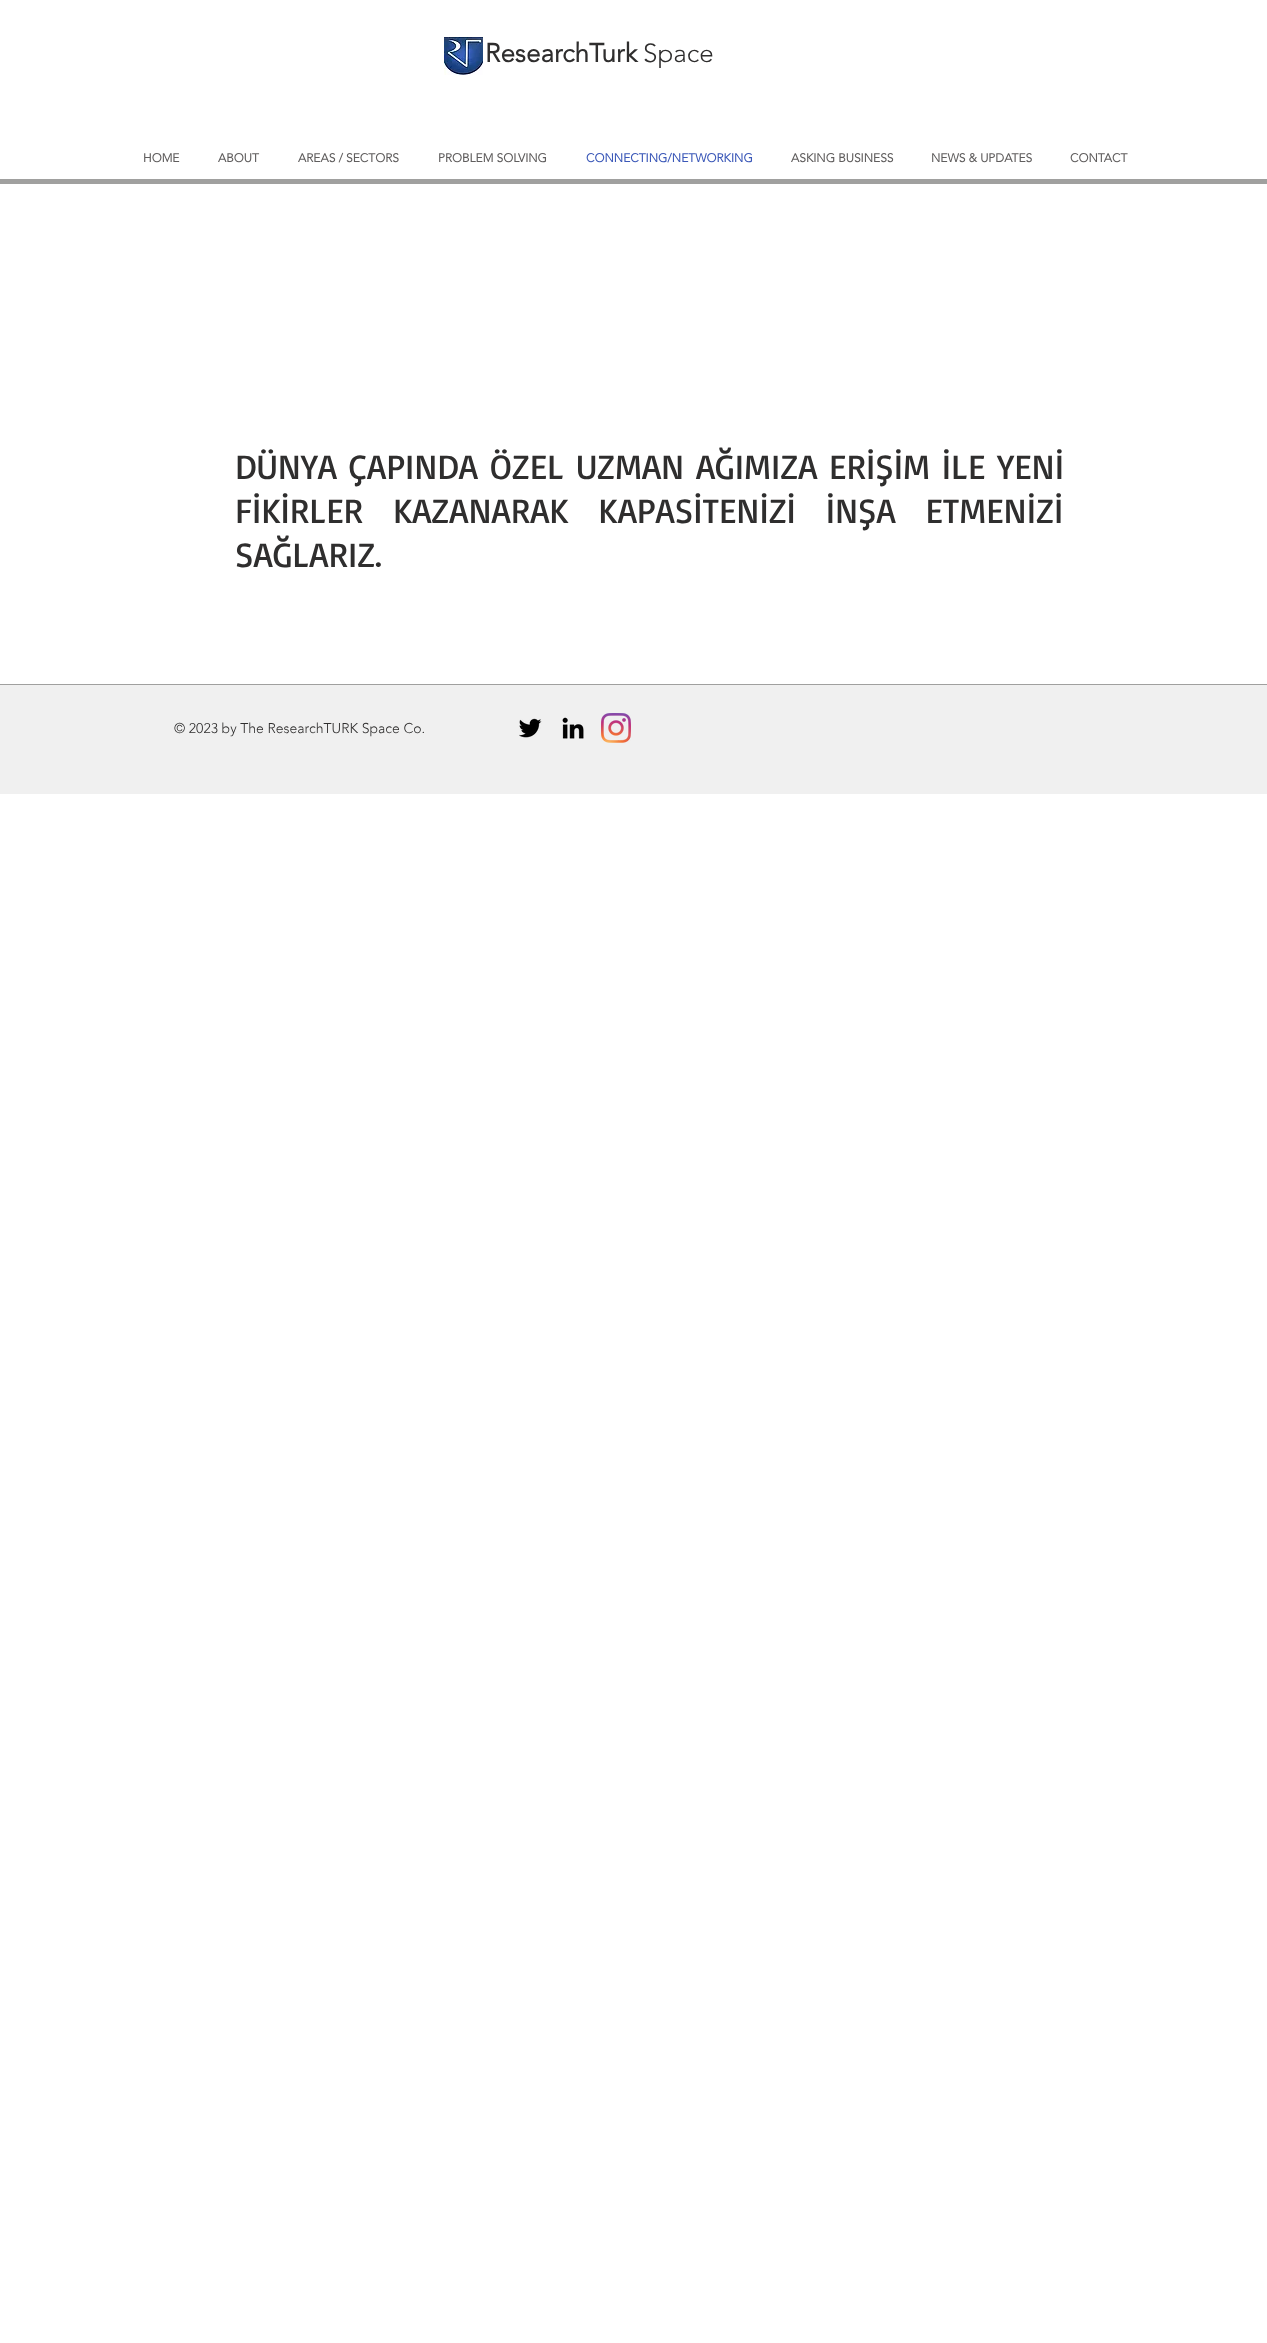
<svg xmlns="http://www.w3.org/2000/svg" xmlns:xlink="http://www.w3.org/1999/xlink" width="1267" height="2343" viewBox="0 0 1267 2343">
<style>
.cls-1{font:bold 26px 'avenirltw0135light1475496';fill:#2f2e2e}
.cls-2{font:300 26px 'avenirltw0135light1475496';fill:#2f2e2e}
.cls-3{font:bold 12px 'avenirltw0135light1475496';fill:#605e5e}
.cls-4{font:bold 12px 'avenirltw0135light1475496';fill:#3b58b8}
.cls-5{font:35px Basic;fill:#2f2e2e}
.cls-6{font:300 14px 'avenirltw0135light1475496';fill:#2f2e2e}
</style>
<rect width="100%" height="100%" fill="#ffffff"/>
<image xlink:href="image0.png" x="444" y="37" width="39" height="38"/>
<rect fill="#a0a09f" x="0" y="179" width="1267" height="5"/>
<rect fill="#f0f0f0" x="0" y="685" width="1267" height="109"/>
<rect fill="#a0a09f" x="0" y="684" width="1267" height="1"/>
<image xlink:href="image1.png" x="519" y="718" width="23" height="20"/>
<image xlink:href="image2.png" x="562" y="717" width="22" height="22"/>
<image xlink:href="image3.png" x="601" y="713" width="30" height="30"/>
<text class="cls-1" x="485" y="62">ResearchTurk</text>
<text class="cls-2" x="643" y="62">Space</text>
<text class="cls-3" x="143" y="162">HOME</text>
<text class="cls-3" x="218" y="162">ABOUT</text>
<text class="cls-3" x="298" y="162">AREAS / SECTORS</text>
<text class="cls-3" x="438" y="162">PROBLEM SOLVING</text>
<text class="cls-4" x="586" y="162">CONNECTING/NETWORKING</text>
<text class="cls-3" x="791" y="162">ASKING BUSINESS</text>
<text class="cls-3" x="931" y="162">NEWS &amp; UPDATES</text>
<text class="cls-3" x="1070" y="162">CONTACT</text>
<text class="cls-5"><tspan x="235" y="479" word-spacing="2">DÜNYA ÇAPINDA ÖZEL UZMAN AĞIMIZA ERİŞİM İLE YENİ</tspan><tspan x="235" y="523" word-spacing="20">FİKİRLER KAZANARAK KAPASİTENİZİ İNŞA ETMENİZİ</tspan><tspan x="235" y="567">SAĞLARIZ.</tspan></text>
<text class="cls-6" x="174" y="733">© 2023 by The ResearchTURK Space Co.</text>
</svg>
